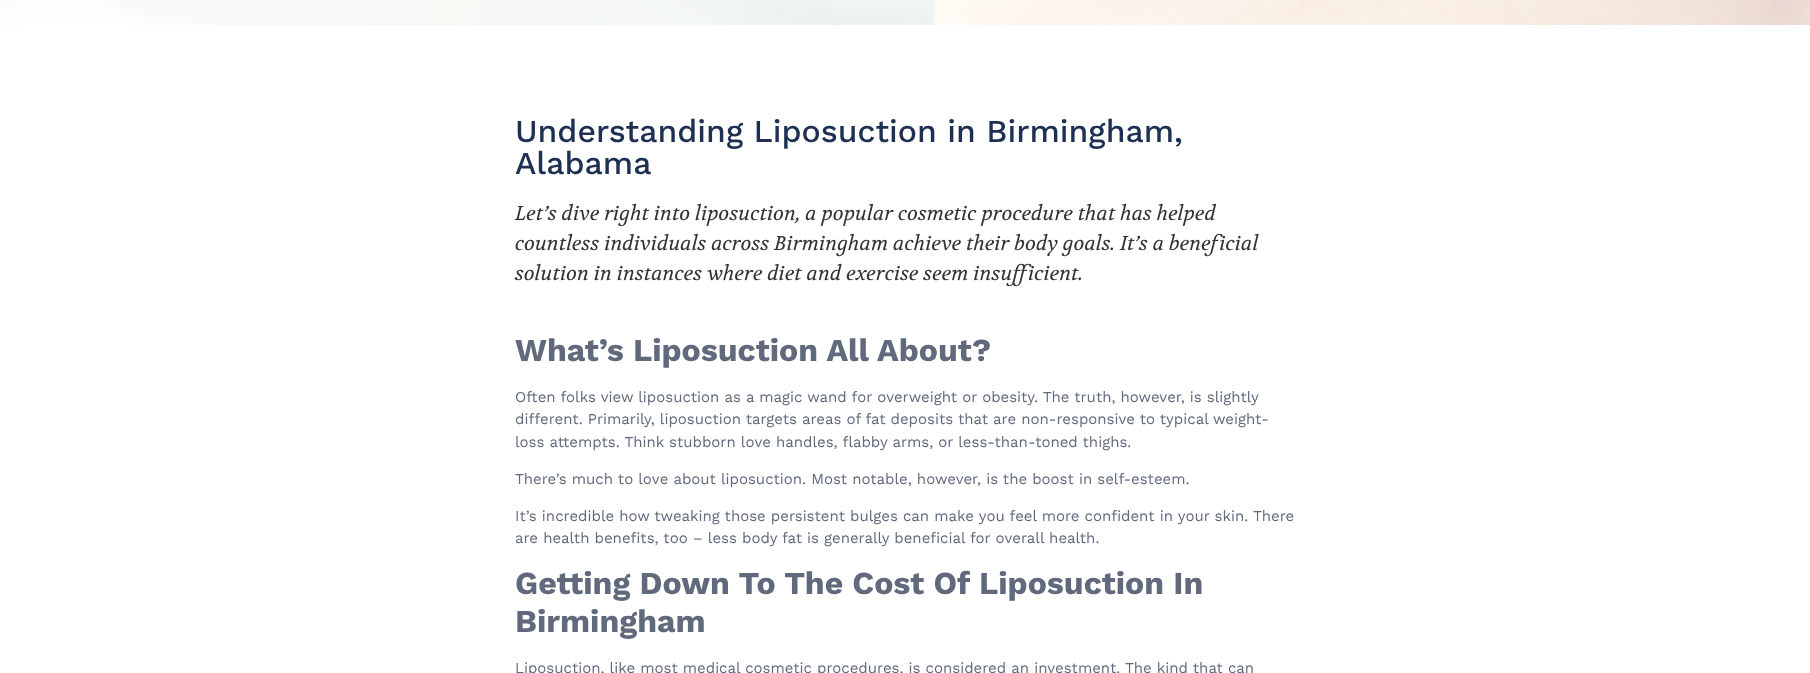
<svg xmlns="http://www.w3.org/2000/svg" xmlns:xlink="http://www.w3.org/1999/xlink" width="1810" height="673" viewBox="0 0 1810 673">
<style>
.cls-1{font:500 32px Work Sans;fill:#1d2f52}
.cls-2{font:italic 20px Volkhov;fill:#333333}
.cls-3{font:bold 32px Work Sans;fill:#606a7c}
.cls-4{font:15px Work Sans;fill:#606a7c}
</style>
<rect width="100%" height="100%" fill="#ffffff"/>
<image xlink:href="image0.png" x="0" y="0" width="1810" height="25"/>
<text class="cls-1"><tspan x="515" y="142">Understanding Liposuction in Birmingham,</tspan><tspan x="515" y="174">Alabama</tspan></text>
<text class="cls-2"><tspan x="515" y="220">Let’s dive right into liposuction, a popular cosmetic procedure that has helped</tspan><tspan x="515" y="250">countless individuals across Birmingham achieve their body goals. It’s a beneficial</tspan><tspan x="515" y="280">solution in instances where diet and exercise seem insufficient.</tspan></text>
<text class="cls-3" x="515" y="361">What’s Liposuction All About?</text>
<text class="cls-4"><tspan x="515" y="402">Often folks view liposuction as a magic wand for overweight or obesity. The truth, however, is slightly</tspan><tspan x="515" y="424">different. Primarily, liposuction targets areas of fat deposits that are non-responsive to typical weight-</tspan><tspan x="515" y="447">loss attempts. Think stubborn love handles, flabby arms, or less-than-toned thighs.</tspan></text>
<text class="cls-4" x="515" y="484">There’s much to love about liposuction. Most notable, however, is the boost in self-esteem.</text>
<text class="cls-4"><tspan x="515" y="521">It’s incredible how tweaking those persistent bulges can make you feel more confident in your skin. There</tspan><tspan x="515" y="543">are health benefits, too – less body fat is generally beneficial for overall health.</tspan></text>
<text class="cls-3"><tspan x="515" y="594">Getting Down To The Cost Of Liposuction In</tspan><tspan x="515" y="632">Birmingham</tspan></text>
<text class="cls-4" x="515" y="673">Liposuction, like most medical cosmetic procedures, is considered an investment. The kind that can</text>
</svg>
